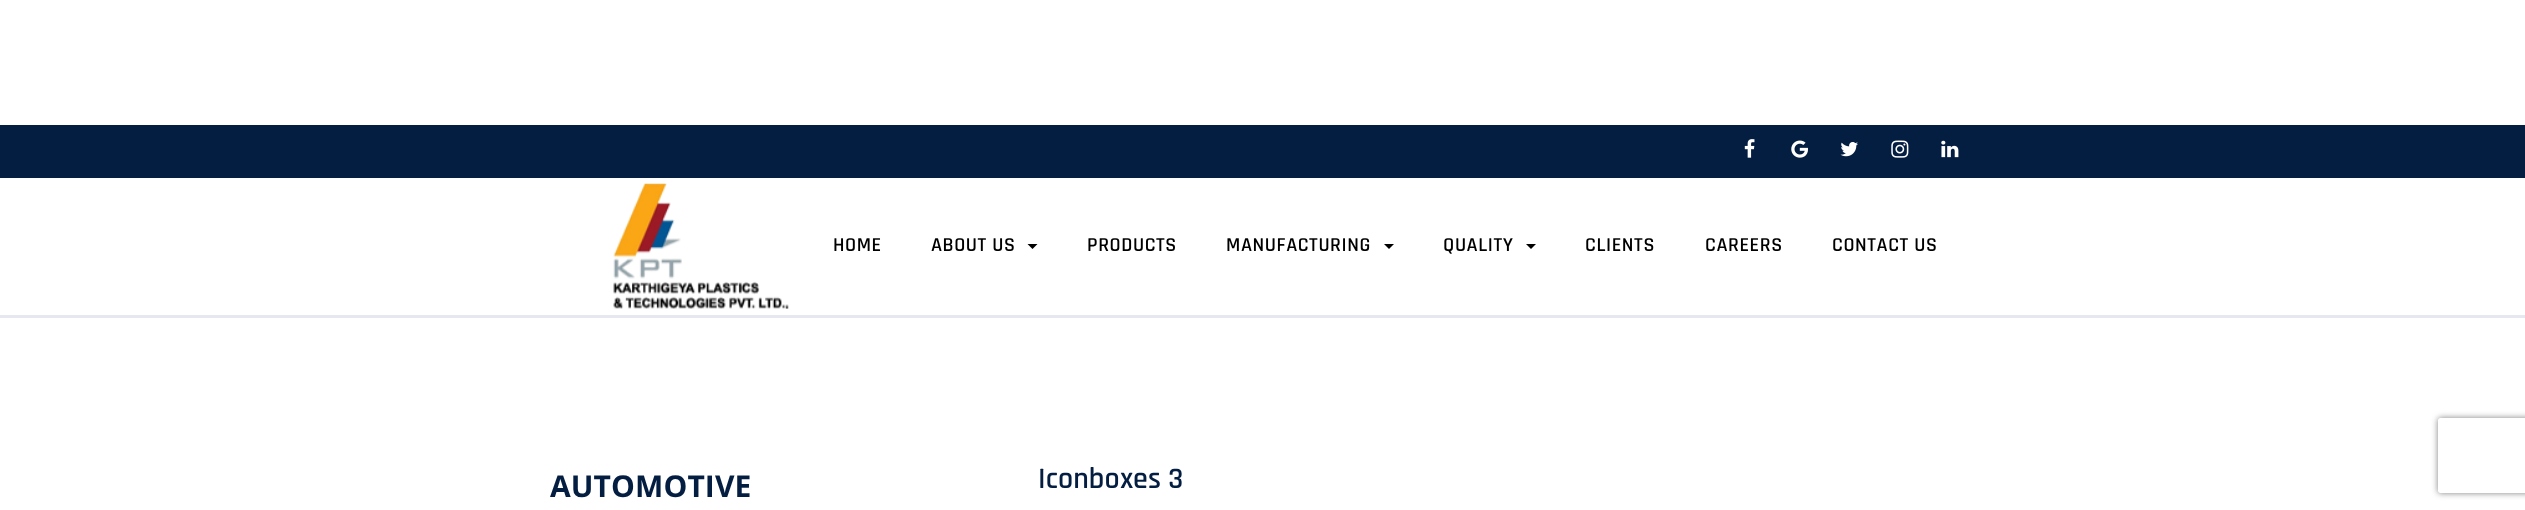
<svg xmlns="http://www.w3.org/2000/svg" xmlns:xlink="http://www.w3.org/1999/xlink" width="2525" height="510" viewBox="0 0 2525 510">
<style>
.cls-1{font:600 20px Rajdhani;letter-spacing:0.6px;fill:#000000}
.cls-2{font:bold 30px Open Sans;letter-spacing:0.1px;fill:#041e42}
.cls-3{font:600 30px Rajdhani;letter-spacing:0.1px;fill:#041e42}
</style>
<defs>
<clipPath id="clip1"><path d="M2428 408H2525V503H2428ZM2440.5 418H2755.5C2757 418 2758 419 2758 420.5V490.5C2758 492 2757 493 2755.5 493H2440.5C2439 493 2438 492 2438 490.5V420.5C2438 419 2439 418 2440.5 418Z" clip-rule="evenodd"/></clipPath>
</defs>
<rect width="100%" height="100%" fill="#ffffff"/>
<rect fill="#041e42" x="0" y="125" width="2525" height="53"/>
<image xlink:href="image0.png" x="1744" y="139" width="11" height="19"/>
<image xlink:href="image1.png" x="1791" y="140" width="17" height="18"/>
<image xlink:href="image2.png" x="1840" y="142" width="18" height="15"/>
<image xlink:href="image3.png" x="1891" y="140" width="18" height="18"/>
<image xlink:href="image4.png" x="1941" y="140" width="18" height="18"/>
<rect fill="#e7e7f2" x="0" y="315" width="2525" height="3"/>
<image xlink:href="image5.png" x="613" y="183" width="176" height="126"/>
<path fill="#000000" d="M1027.5 244H1037.5L1032.5 249Z"/>
<path fill="#000000" d="M1384 244H1394L1389 249Z"/>
<path fill="#000000" d="M1526 244H1536L1531 249Z"/>
<g clip-path="url(#clip1)">
<rect fill="#808080" filter="blur(3px)" x="2438" y="418" width="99" height="75" rx="2.5"/>
</g>
<text class="cls-1" x="833" y="251">HOME</text>
<text class="cls-1" x="931" y="251">ABOUT US</text>
<text class="cls-1" x="1087" y="251">PRODUCTS</text>
<text class="cls-1" x="1226" y="251">MANUFACTURING</text>
<text class="cls-1" x="1443" y="251">QUALITY</text>
<text class="cls-1" x="1585" y="251">CLIENTS</text>
<text class="cls-1" x="1705" y="251">CAREERS</text>
<text class="cls-1" x="1832" y="251">CONTACT US</text>
<text class="cls-2" x="550" y="497">AUTOMOTIVE</text>
<text class="cls-3" x="1038" y="488">Iconboxes 3</text>
</svg>
